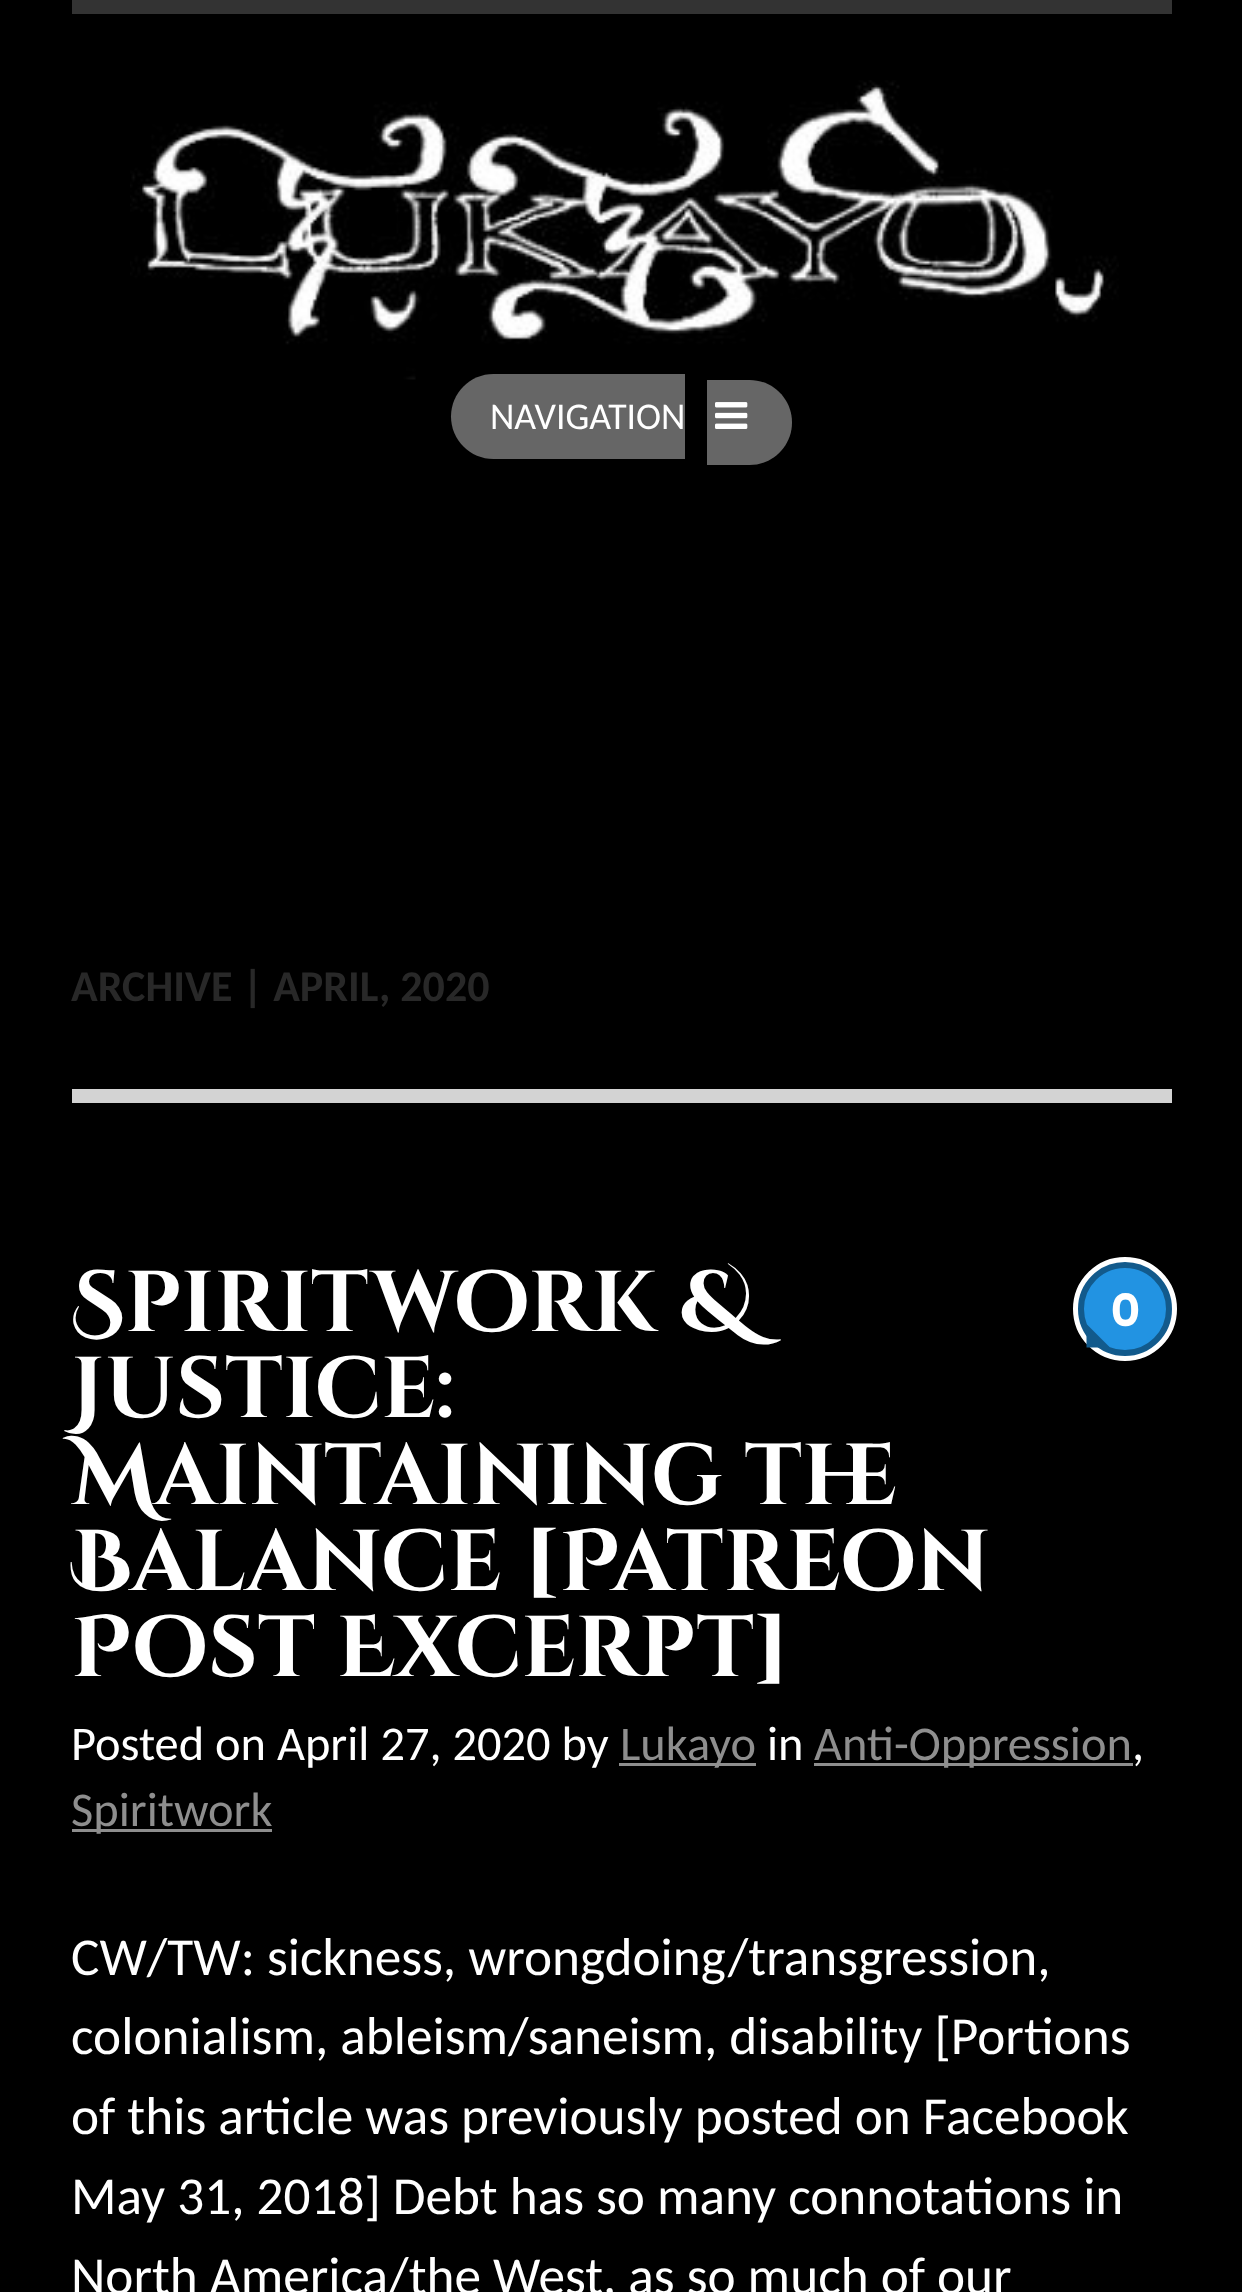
<svg xmlns="http://www.w3.org/2000/svg" xmlns:xlink="http://www.w3.org/1999/xlink" width="1242" height="2292" viewBox="0 0 1242 2292">
<style>
.cls-1{font:37.75px Carlito;fill:#ffffff}
.cls-2{font:bold 44px Carlito;fill:#282828}
.cls-3{font:bold 86.25px Cinzel Decorative;fill:#ffffff}
.cls-4{font:48.4px Carlito;fill:#ffffff}
.cls-5{font:48.4px Carlito;fill:#8e8e8e}
.cls-6{font:bold 44px Arvo;fill:#ffffff}
.cls-7{font:53.25px Carlito;fill:#ffffff}
</style>
<rect width="100%" height="100%" fill="#000000"/>
<rect fill="#333333" x="72" y="0" width="1100" height="14"/>
<image xlink:href="image0.png" x="130" y="80" width="989" height="300"/>
<path fill="#666666" d="M493.5 374H685V459H493.5C470 459 451 440 451 416.5C451 393 470 374 493.5 374Z"/>
<path fill="#666666" d="M707 380H749.5C773 380 792 399 792 422.5C792 446 773 465 749.5 465H707Z"/>
<image xlink:href="image1.png" x="715" y="402" width="33" height="27"/>
<rect fill="#d3d3d3" x="72" y="1089" width="1100" height="14"/>
<rect fill="#8e8e8e" x="619" y="1763" width="137" height="3"/>
<rect fill="#8e8e8e" x="814" y="1763" width="319" height="3"/>
<rect fill="#8e8e8e" x="72" y="1829" width="200" height="3"/>
<circle fill="none" stroke="#ffffff" stroke-width="6" cx="1125" cy="1309" r="49"/>
<circle fill="#2293e2" stroke="#125a8c" stroke-width="6" cx="1125" cy="1309" r="44"/>
<path fill="#125a8c" d="M1086.5 1324L1110 1347.5H1086.5Z"/>
<text class="cls-1" x="490" y="429">NAVIGATION</text>
<text class="cls-2" x="71" y="1001">ARCHIVE | APRIL, 2020</text>
<text class="cls-3"><tspan x="71" y="1331">Spiritwork &amp;</tspan><tspan x="71" y="1417">Justice:</tspan><tspan x="71" y="1504">Maintaining the</tspan><tspan x="71" y="1590">Balance [Patreon</tspan><tspan x="71" y="1676">Post Excerpt]</tspan></text>
<text class="cls-4" x="71" y="1760">Posted on April 27, 2020 by</text>
<text class="cls-5" x="620" y="1760">Lukayo</text>
<text class="cls-4" x="767" y="1760">in</text>
<text class="cls-5" x="814" y="1760">Anti-Oppression</text>
<text class="cls-4" x="1132" y="1760">,</text>
<text class="cls-5" x="71" y="1826">Spiritwork</text>
<text class="cls-6" x="1111" y="1326">0</text>
<text class="cls-7"><tspan x="71" y="1975">CW/TW: sickness, wrongdoing/transgression,</tspan><tspan x="71" y="2054">colonialism, ableism/saneism, disability [Portions</tspan><tspan x="71" y="2134">of this article was previously posted on Facebook</tspan><tspan x="71" y="2214">May 31, 2018] Debt has so many connotations in</tspan><tspan x="71" y="2294">North America/the West, as so much of our</tspan></text>
</svg>
